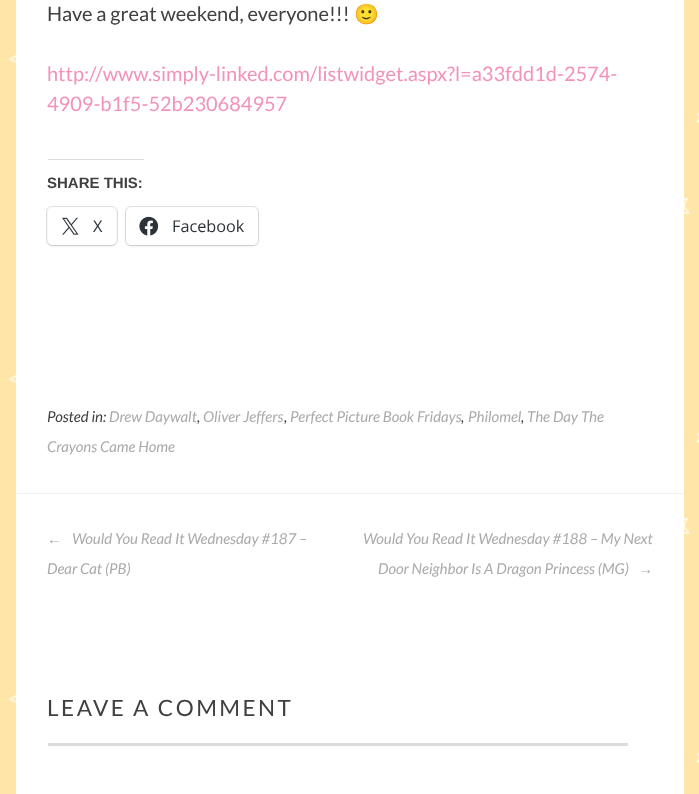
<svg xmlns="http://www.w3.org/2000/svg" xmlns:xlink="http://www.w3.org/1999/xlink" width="699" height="794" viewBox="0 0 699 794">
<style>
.cls-1{font:20px Lato;fill:#404040}
.cls-2{font:20px Noto Color Emoji;fill:#404040}
.cls-3{font:20px Lato;fill:#f392b9}
.cls-4{font:bold 15px Liberation Sans;fill:#404040}
.cls-5{font:16.25px Open Sans;fill:#2c3338}
.cls-6{font:italic 15px Lato;fill:#404040}
.cls-7{font:italic 15px Lato;fill:#aaaaaa}
.cls-8{font:italic 15px Liberation Sans;fill:#aaaaaa}
.cls-9{font:22.5px Lato;letter-spacing:2.5px;fill:#404040}
</style>
<rect width="100%" height="100%" fill="#ffe6a8"/>
<image xlink:href="image0.png" x="9" y="52" width="690" height="711"/>
<rect fill="#ffffff" x="16" y="0" width="668" height="794"/>
<rect fill="#dcdcde" x="48" y="159" width="96" height="1"/>
<rect fill="none" stroke="#e0e0e0" x="46.5" y="206.5" width="71" height="39" rx="5.5"/>
<rect fill="#000000" fill-opacity="0.12" filter="blur(1px)" x="48" y="209" width="68" height="37" rx="5"/>
<rect fill="#ffffff" x="48" y="208" width="68" height="37" rx="5"/>
<image xlink:href="image1.png" x="62" y="217" width="17" height="18"/>
<rect fill="none" stroke="#e0e0e0" x="125.5" y="206.5" width="133" height="39" rx="5.5"/>
<rect fill="#000000" fill-opacity="0.12" filter="blur(1px)" x="126" y="209" width="132" height="37" rx="5"/>
<rect fill="#ffffff" x="126" y="208" width="132" height="37" rx="5"/>
<image xlink:href="image2.png" x="139" y="216" width="20" height="20"/>
<rect fill="#f2f2f2" x="16" y="493" width="668" height="1"/>
<rect fill="#dcdcde" x="48" y="743" width="580" height="3"/>
<text class="cls-1" x="47" y="21">Have a great weekend, everyone!!!</text>
<text class="cls-2" x="354" y="21">🙂</text>
<text class="cls-3"><tspan x="47" y="81">http://www.simply-linked.com/listwidget.aspx?l=a33fdd1d-2574-</tspan><tspan x="47" y="111">4909-b1f5-52b230684957</tspan></text>
<text class="cls-4" x="47" y="188">SHARE THIS:</text>
<text class="cls-5" x="93" y="232">X</text>
<text class="cls-5" x="172" y="232">Facebook</text>
<text class="cls-6" x="47" y="422">Posted in:</text>
<text class="cls-7" x="109" y="422">Drew Daywalt</text>
<text class="cls-6" x="197" y="422">,</text>
<text class="cls-7" x="203" y="422">Oliver Jeffers</text>
<text class="cls-6" x="284" y="422">,</text>
<text class="cls-7" x="290" y="422">Perfect Picture Book Fridays</text>
<text class="cls-6" x="461" y="422">,</text>
<text class="cls-7" x="468" y="422">Philomel</text>
<text class="cls-6" x="521" y="422">,</text>
<text class="cls-7" x="527" y="422">The Day The</text>
<text class="cls-7" x="47" y="452">Crayons Came Home</text>
<text class="cls-8" x="47" y="544">←</text>
<text class="cls-7" x="72" y="544">Would You Read It Wednesday #187 –</text>
<text class="cls-7" x="47" y="574">Dear Cat (PB)</text>
<text class="cls-7" x="363" y="544">Would You Read It Wednesday #188 – My Next</text>
<text class="cls-7" x="378" y="574">Door Neighbor Is A Dragon Princess (MG)</text>
<text class="cls-8" x="638" y="574">→</text>
<text class="cls-9" x="47" y="716">LEAVE A COMMENT</text>
</svg>
